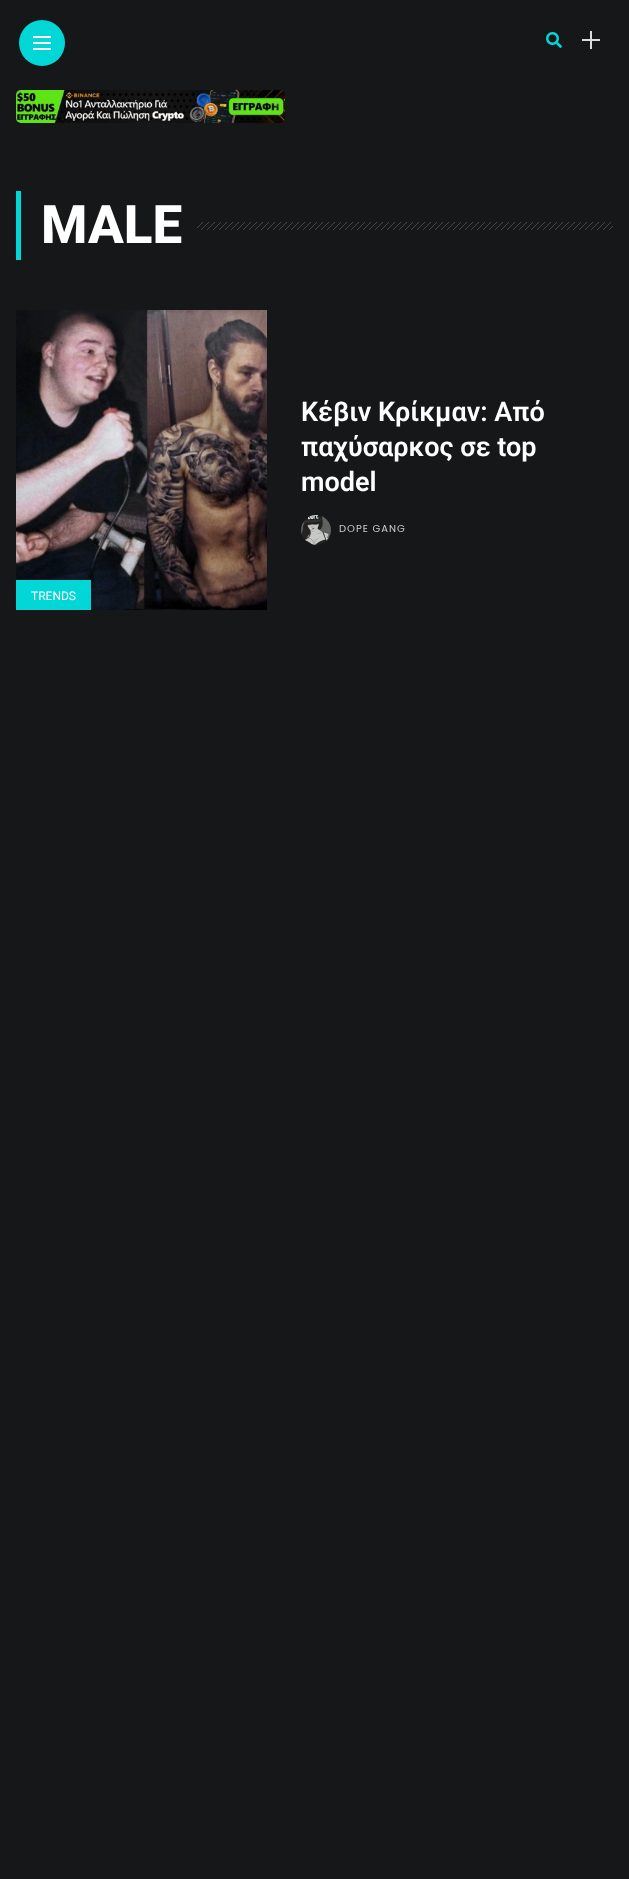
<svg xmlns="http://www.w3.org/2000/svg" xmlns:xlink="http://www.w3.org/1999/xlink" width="629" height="1879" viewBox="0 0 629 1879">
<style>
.cls-1{font:800 53px Roboto;fill:#ffffff}
.cls-2{font:600 27px Roboto;fill:#ffffff}
.cls-3{font:10px Poppins;letter-spacing:1px;fill:#cccccc}
.cls-4{font:12px Roboto;fill:#ffffff}
</style>
<defs>
<clipPath id="clip1"><rect x="16" y="580" width="75" height="30"/></clipPath>
</defs>
<rect width="100%" height="100%" fill="#161719"/>
<circle fill="#02d6d6" cx="42" cy="43" r="23"/>
<rect fill="#ffffff" x="33" y="36" width="18" height="2"/>
<rect fill="#ffffff" x="33" y="42" width="18" height="2"/>
<rect fill="#ffffff" x="33" y="48" width="18" height="2"/>
<image xlink:href="image0.png" x="546" y="32" width="16" height="16"/>
<rect fill="#dbdbdb" x="582" y="39" width="18" height="2"/>
<rect fill="#dbdbdb" x="590" y="31" width="2" height="18"/>
<image xlink:href="image1.png" x="16" y="90" width="269" height="33"/>
<rect fill="#02d6d6" x="16" y="191" width="5" height="69"/>
<image xlink:href="image2.png" x="197" y="222" width="416" height="8"/>
<image xlink:href="image3.png" x="301" y="515" width="30" height="30"/>
<image xlink:href="image4.png" x="16" y="310" width="251" height="300"/>
<rect fill="#02d6d6" x="16" y="580" width="75" height="30"/>
<g clip-path="url(#clip1)">
<path fill="#81ebeb" d="M-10 530L31 559L-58 686L-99 657Z"/>
</g>
<text class="cls-1" x="41" y="243">MALE</text>
<text class="cls-2"><tspan x="301" y="421">Κέβιν Κρίκμαν: Από</tspan><tspan x="301" y="456">παχύσαρκος σε top</tspan><tspan x="301" y="491">model</tspan></text>
<text class="cls-3" x="339" y="532">DOPE GANG</text>
<text class="cls-4" x="31" y="600">TRENDS</text>
</svg>
